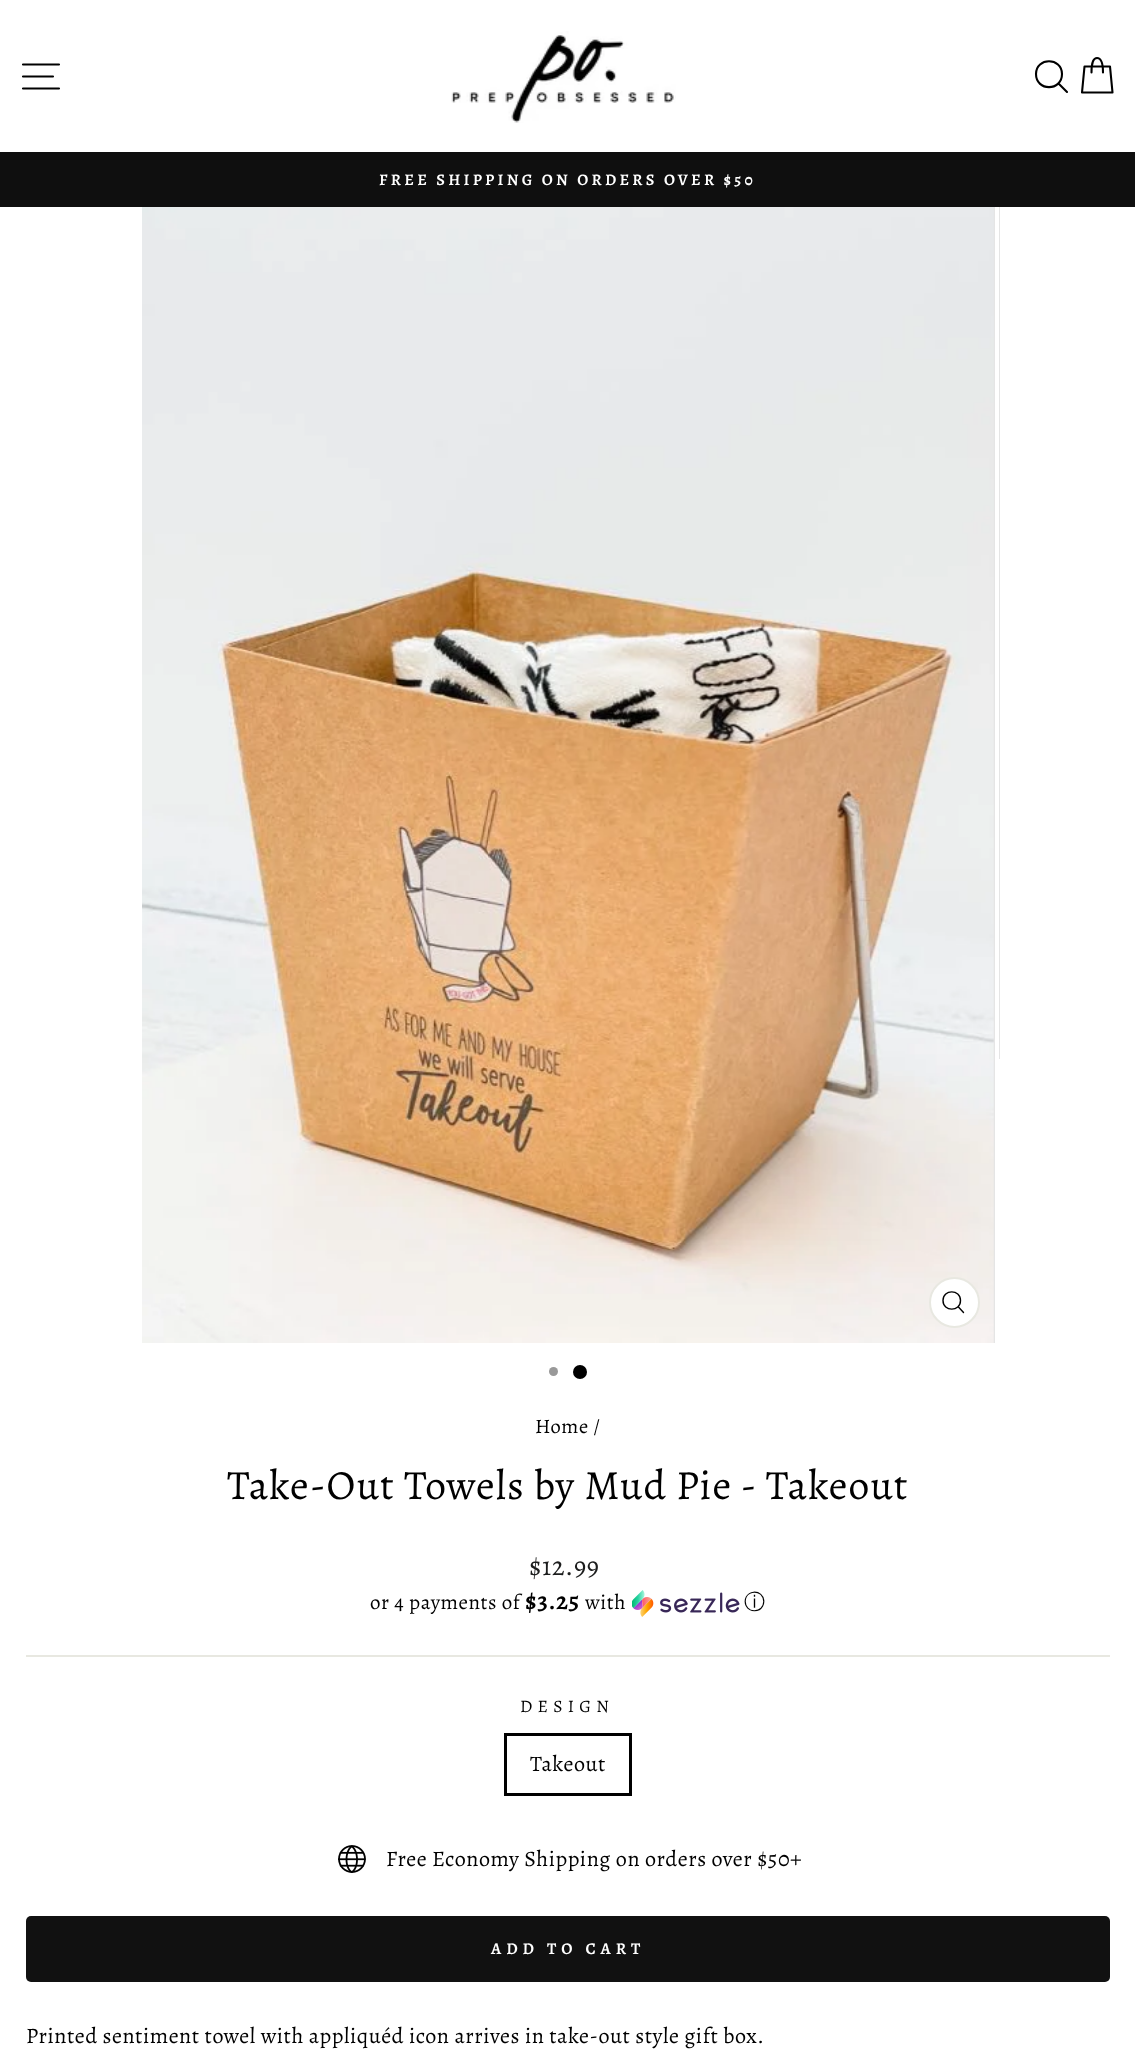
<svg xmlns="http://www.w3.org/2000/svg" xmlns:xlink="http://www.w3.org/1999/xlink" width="1135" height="2072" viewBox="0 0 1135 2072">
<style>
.cls-1{font:600 16.2px Alegreya;letter-spacing:3.25px;fill:#ffffff}
.cls-2{font:20.5px Alegreya;letter-spacing:0.55px;fill:#000000}
.cls-3{font:41.6px Alegreya;letter-spacing:1.05px;fill:#000000}
.cls-4{font:27px Alegreya;letter-spacing:0.55px;fill:#1c1d1d}
.cls-5{font:21px Alegreya;letter-spacing:0.55px;fill:#000000}
.cls-6{font:600 25px Alegreya;letter-spacing:0.55px;fill:#000000}
.cls-7{font:500 21px WenQuanYi Zen Hei;letter-spacing:0.55px;fill:#000000}
.cls-8{font:17.5px Alegreya;letter-spacing:5.25px;fill:#000000}
.cls-9{font:22.1px Alegreya;letter-spacing:0.55px;fill:#000000}
.cls-10{font:600 16.5px Alegreya;letter-spacing:5px;fill:#ffffff}
</style>
<rect width="100%" height="100%" fill="#ffffff"/>
<rect fill="#0f0f0f" x="0" y="152" width="1135" height="55"/>
<rect fill="#000000" fill-opacity="0.2" filter="blur(1px)" x="0" y="0" width="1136" height="152"/>
<rect fill="#ffffff" x="0" y="0" width="1135" height="152"/>
<path fill="none" stroke="#000000" stroke-width="2.1" stroke-linecap="round" stroke-linejoin="round" d="M23 64.5H59M23 76.5H53M23 88.5H59"/>
<image xlink:href="image0.png" x="451" y="31" width="225" height="92"/>
<path fill="none" stroke="#000000" stroke-width="2.1" stroke-linecap="round" stroke-linejoin="round" d="M1062 74C1062 91.5 1036 91.5 1036 74C1036 57 1062 57 1062 74ZM1067 92L1058.5 83.5"/>
<path fill="none" stroke="#000000" stroke-width="2.1" stroke-linecap="round" stroke-linejoin="round" d="M1091.5 72.5C1091.5 61 1094 58 1097 58C1100.5 58 1103 61 1103 72.5M1084.5 66.5H1110L1112.5 92.5H1082Z"/>
<rect fill="#e5e5e5" x="993" y="207" width="2" height="1136"/>
<image xlink:href="image1.png" x="142" y="207" width="852" height="1136"/>
<circle fill="#ffffff" stroke="#e8e8e1" stroke-width="2" cx="954.5" cy="1302.5" r="24.5"/>
<path fill="none" stroke="#000000" stroke-width="1.4" stroke-linecap="round" stroke-linejoin="round" d="M960.5 1300.5C960.5 1312 943 1312 943 1300.5C943 1289 960.5 1289 960.5 1300.5ZM963.5 1312.5L958 1306.5"/>
<rect fill="#e5e5e5" x="999" y="207" width="1" height="852"/>
<circle fill="#999999" cx="553.5" cy="1371.5" r="4.5"/>
<circle fill="#000000" cx="580" cy="1372" r="7"/>
<image xlink:href="image2.png" x="632" y="1590" width="108" height="27"/>
<rect fill="#e8e8e1" x="26" y="1655" width="1084" height="2"/>
<rect fill="none" stroke="#000000" stroke-width="3" x="505.5" y="1734.5" width="125" height="60"/>
<image xlink:href="image3.png" x="338" y="1845" width="28" height="28"/>
<rect fill="#111111" x="26" y="1916" width="1084" height="66" rx="5"/>
<text class="cls-1" x="379" y="185">FREE SHIPPING ON ORDERS OVER $50</text>
<text class="cls-2" x="535" y="1433">Home /</text>
<text class="cls-3" x="227" y="1499">Take-Out Towels by Mud Pie - Takeout</text>
<text class="cls-4" x="529" y="1575">$12.99</text>
<text class="cls-5" x="370" y="1609">or 4 payments of</text>
<text class="cls-6" x="525" y="1609">$3.25</text>
<text class="cls-5" x="585" y="1609">with</text>
<text class="cls-7" x="744" y="1609">ⓘ</text>
<text class="cls-8" x="520" y="1712">DESIGN</text>
<text class="cls-9" x="530" y="1771">Takeout</text>
<text class="cls-9" x="386" y="1866">Free Economy Shipping on orders over $50+</text>
<text class="cls-10" x="491" y="1954">ADD TO CART</text>
<text class="cls-9" x="26" y="2043">Printed sentiment towel with appliquéd icon arrives in take-out style gift box.</text>
</svg>
